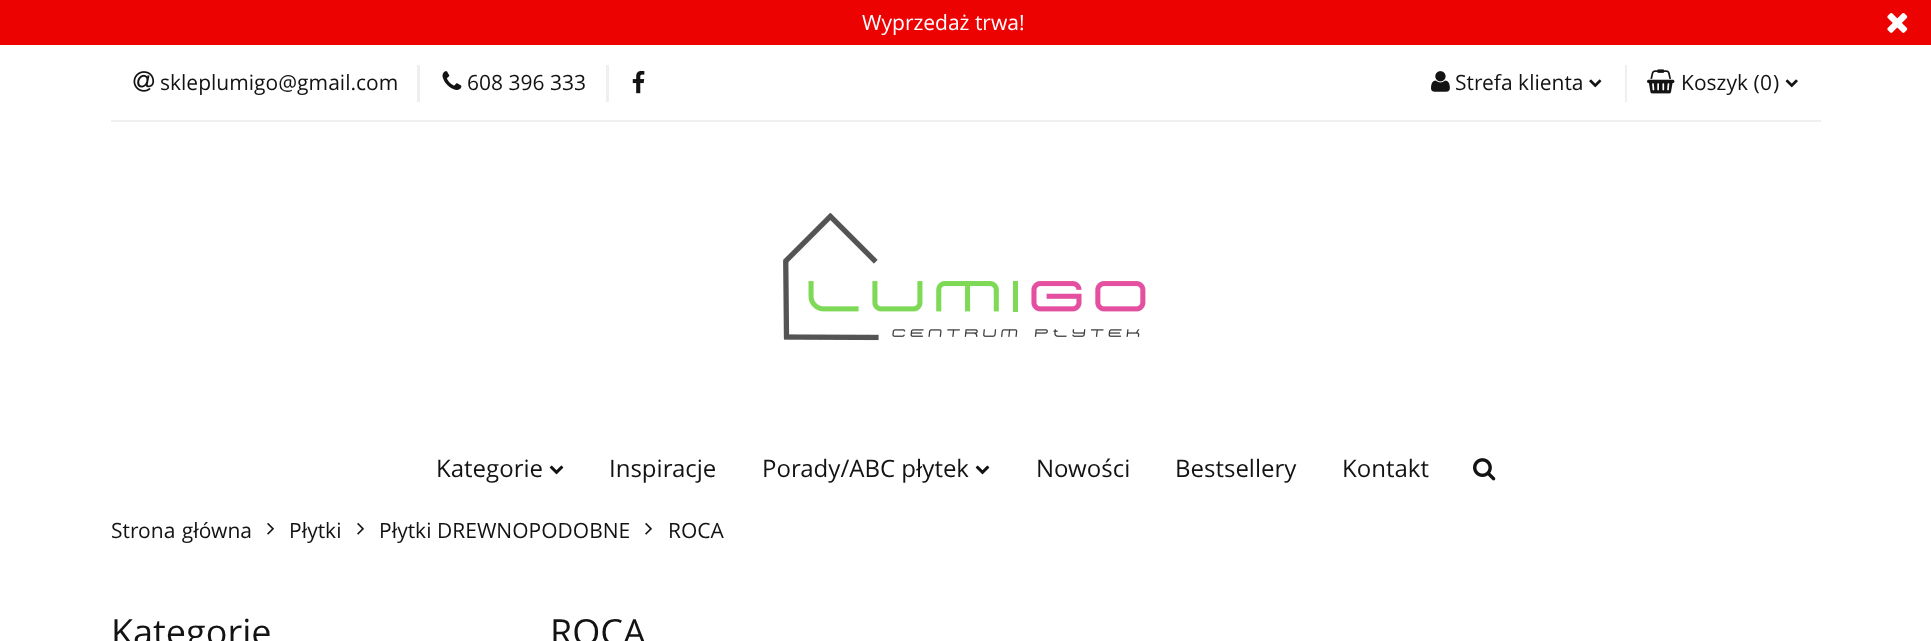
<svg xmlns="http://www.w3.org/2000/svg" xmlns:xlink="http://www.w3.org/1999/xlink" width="1931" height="641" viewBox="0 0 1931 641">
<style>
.cls-1{font:21px Open Sans;fill:#ffffff}
.cls-2{font:21px Open Sans;fill:#131313}
.cls-3{font:24px Open Sans;fill:#131313}
.cls-4{font:36px Open Sans;fill:#131313}
</style>
<rect width="100%" height="100%" fill="#ffffff"/>
<rect fill="#ed0202" x="0" y="0" width="1931" height="45"/>
<image xlink:href="image0.png" x="1887" y="13" width="21" height="20"/>
<rect fill="#efefef" x="111" y="120" width="1710" height="2"/>
<image xlink:href="image1.png" x="133" y="71" width="22" height="21"/>
<rect fill="#efefef" x="417" y="65" width="3" height="37"/>
<image xlink:href="image2.png" x="442" y="71" width="20" height="19"/>
<rect fill="#efefef" x="606" y="65" width="3" height="37"/>
<image xlink:href="image3.png" x="632" y="70" width="13" height="24"/>
<image xlink:href="image4.png" x="1431" y="71" width="19" height="21"/>
<image xlink:href="image5.png" x="1589" y="79" width="13" height="9"/>
<rect fill="#efefef" x="1625" y="65" width="2" height="37"/>
<image xlink:href="image6.png" x="1647" y="69" width="28" height="25"/>
<image xlink:href="image7.png" x="1785" y="79" width="13" height="9"/>
<image xlink:href="image8.png" x="783" y="213" width="363" height="128"/>
<image xlink:href="image9.png" x="549" y="465" width="15" height="10"/>
<image xlink:href="image9.png" x="975" y="465" width="15" height="10"/>
<image xlink:href="image10.png" x="1473" y="458" width="23" height="23"/>
<image xlink:href="image11.png" x="267" y="523" width="7" height="12"/>
<image xlink:href="image11.png" x="357" y="523" width="7" height="12"/>
<image xlink:href="image11.png" x="645" y="523" width="7" height="12"/>
<text class="cls-1" x="862" y="30">Wyprzedaż trwa!</text>
<text class="cls-2" x="160" y="90">skleplumigo@gmail.com</text>
<text class="cls-2" x="467" y="90">608 396 333</text>
<text class="cls-2" x="1455" y="90">Strefa klienta</text>
<text class="cls-2" x="1681" y="90">Koszyk (</text>
<text class="cls-2" x="1760" y="90">0</text>
<text class="cls-2" x="1773" y="90">)</text>
<text class="cls-3" x="436" y="477">Kategorie</text>
<text class="cls-3" x="609" y="477">Inspiracje</text>
<text class="cls-3" x="762" y="477">Porady/ABC płytek</text>
<text class="cls-3" x="1036" y="477">Nowości</text>
<text class="cls-3" x="1175" y="477">Bestsellery</text>
<text class="cls-3" x="1342" y="477">Kontakt</text>
<text class="cls-2" x="111" y="538" word-spacing="1">Strona główna</text>
<text class="cls-2" x="289" y="538">Płytki</text>
<text class="cls-2" x="379" y="538">Płytki DREWNOPODOBNE</text>
<text class="cls-2" x="668" y="538">ROCA</text>
<text class="cls-4" x="111" y="645">Kategorie</text>
<text class="cls-4" x="550" y="645">ROCA</text>
</svg>
